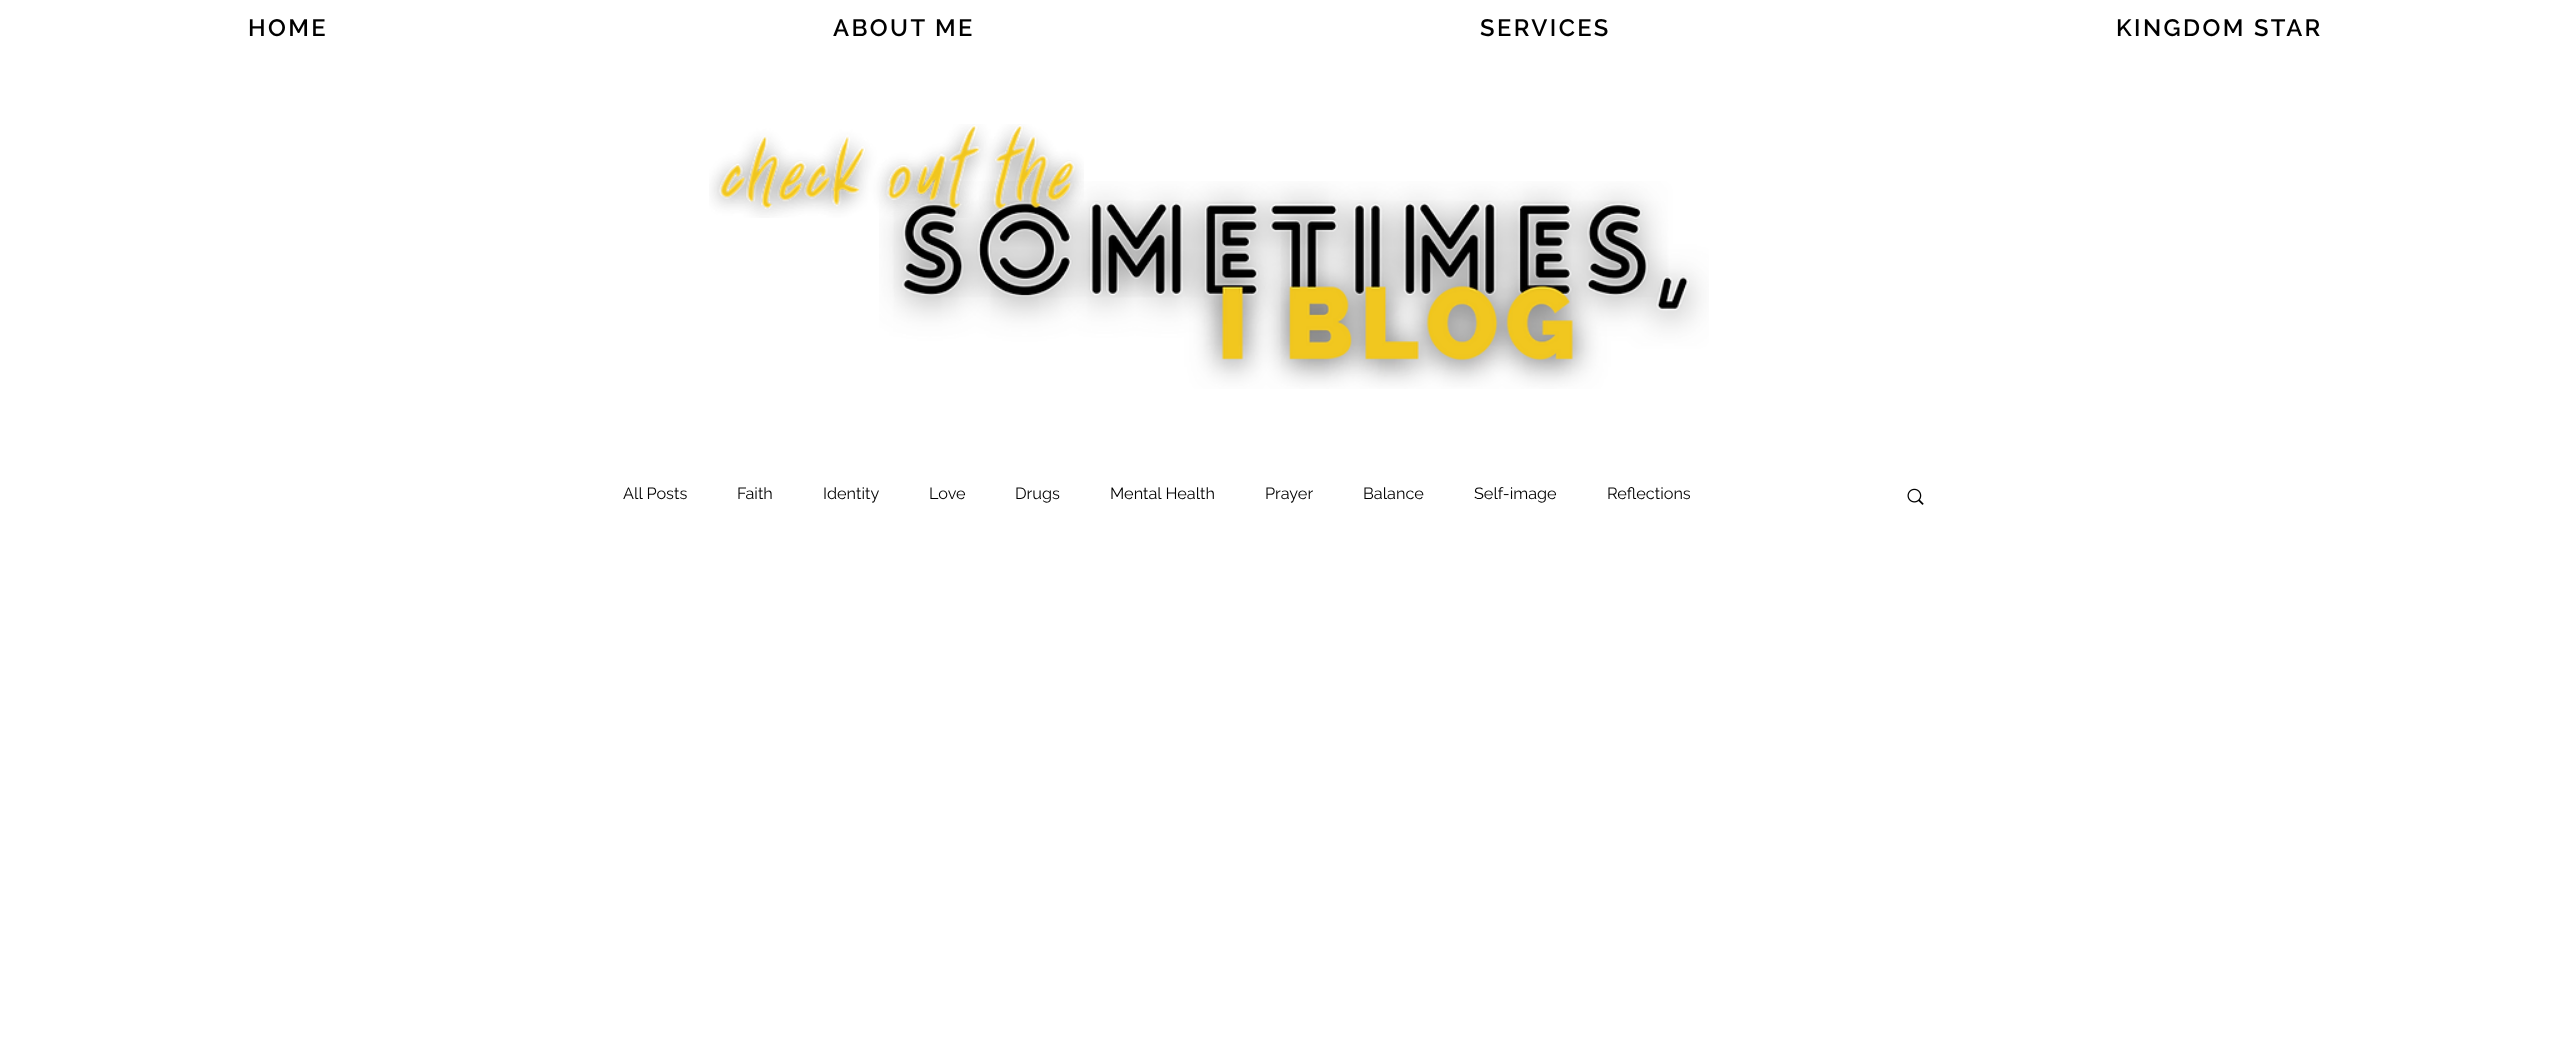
<svg xmlns="http://www.w3.org/2000/svg" xmlns:xlink="http://www.w3.org/1999/xlink" width="2569" height="1050" viewBox="0 0 2569 1050">
<style>
.cls-1{font:600 23.75px Raleway;letter-spacing:2.4px;fill:#000000}
.cls-2{font:16.25px Raleway;fill:#000000}
</style>
<rect width="100%" height="100%" fill="#ffffff"/>
<image xlink:href="image1.png" x="879" y="181" width="830" height="208"/>
<image xlink:href="image0.png" x="709" y="124" width="375" height="94"/>
<image xlink:href="image2.png" x="1907" y="488" width="17" height="17"/>
<text class="cls-1" x="248" y="36">HOME</text>
<text class="cls-1" x="833" y="36">ABOUT ME</text>
<text class="cls-1" x="1480" y="36">SERVICES</text>
<text class="cls-1" x="2116" y="36">KINGDOM STAR</text>
<text class="cls-2" x="623" y="499">All Posts</text>
<text class="cls-2" x="737" y="499">Faith</text>
<text class="cls-2" x="823" y="499">Identity</text>
<text class="cls-2" x="929" y="499">Love</text>
<text class="cls-2" x="1015" y="499">Drugs</text>
<text class="cls-2" x="1110" y="499">Mental Health</text>
<text class="cls-2" x="1265" y="499">Prayer</text>
<text class="cls-2" x="1363" y="499">Balance</text>
<text class="cls-2" x="1474" y="499">Self-image</text>
<text class="cls-2" x="1607" y="499">Reflections</text>
</svg>
